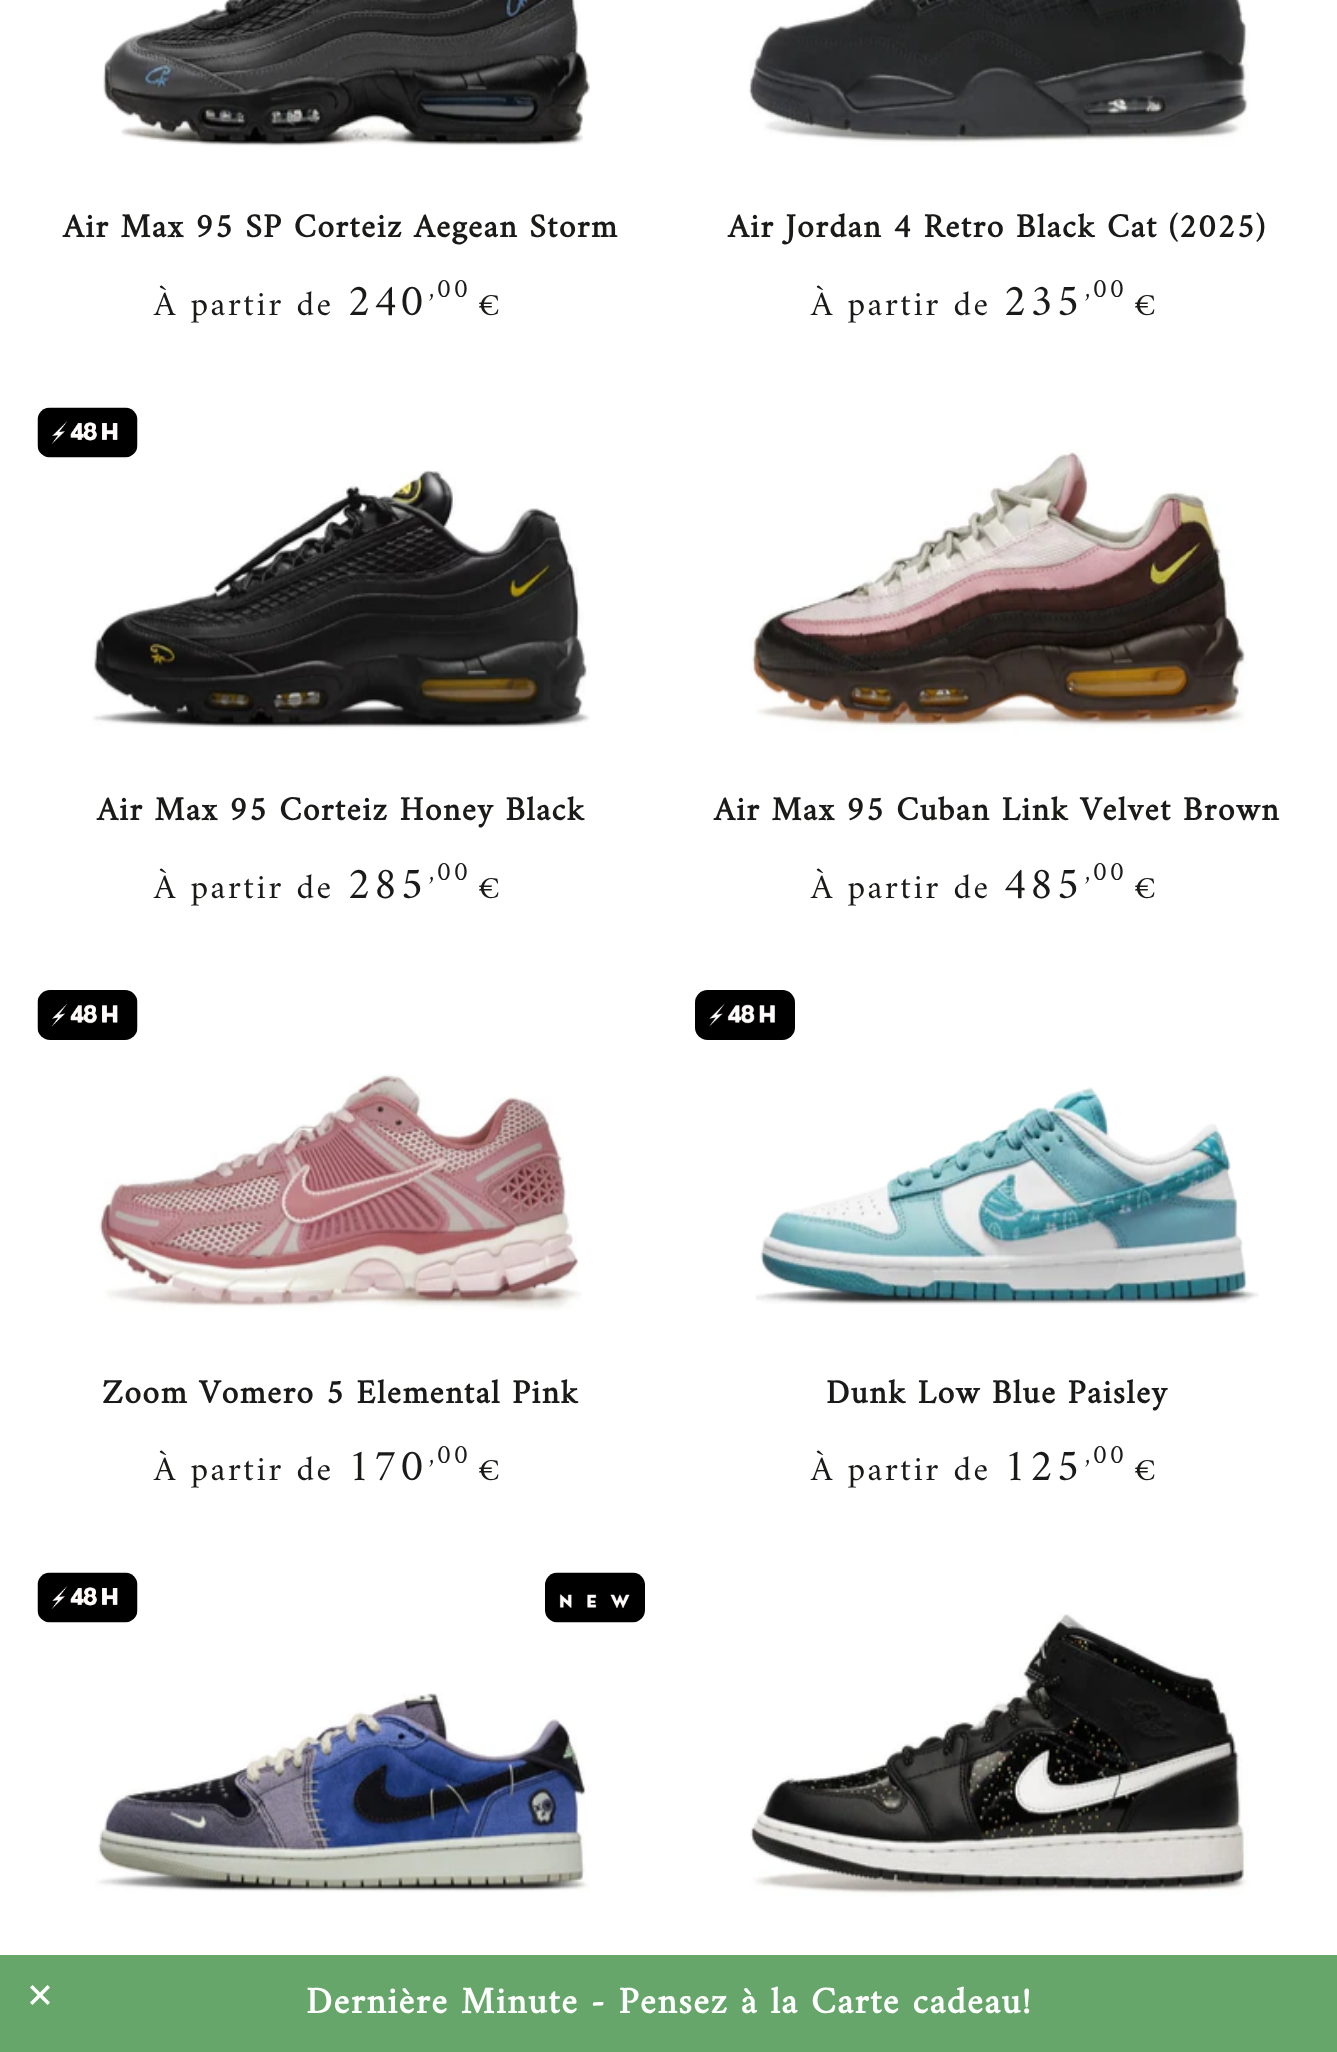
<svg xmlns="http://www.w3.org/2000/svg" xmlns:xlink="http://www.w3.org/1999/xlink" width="1337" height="2052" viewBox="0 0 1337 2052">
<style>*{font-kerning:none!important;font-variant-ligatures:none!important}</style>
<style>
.cls-1{font:bold 33.75px Amiri;letter-spacing:1.35px;fill:#1a1b18}
.cls-2{font:35px Amiri;letter-spacing:2.5px;fill:#1a1b18}
.cls-3{font:45px Amiri;letter-spacing:2.5px;fill:#1a1b18}
.cls-4{font:27px Amiri;letter-spacing:2.5px;fill:#1a1b18}
.cls-5{font:32px Amiri;letter-spacing:2.5px;fill:#1a1b18}
.cls-6{font:bold 37.5px Amiri;letter-spacing:1.5px;fill:#ffffff}
</style>
<rect width="100%" height="100%" fill="#ffffff"/>
<image xlink:href="image0.png" x="103" y="0" width="487" height="147"/>
<image xlink:href="image1.png" x="748" y="0" width="501" height="146"/>
<image xlink:href="image2.png" x="37" y="407" width="101" height="51"/>
<image xlink:href="image3.png" x="92" y="470" width="498" height="260"/>
<image xlink:href="image4.png" x="750" y="449" width="497" height="284"/>
<image xlink:href="image5.png" x="37" y="990" width="101" height="50"/>
<image xlink:href="image6.png" x="98" y="1074" width="484" height="237"/>
<image xlink:href="image7.png" x="695" y="990" width="100" height="50"/>
<image xlink:href="image8.png" x="755" y="1087" width="504" height="218"/>
<image xlink:href="image2.png" x="37" y="1572" width="101" height="51"/>
<image xlink:href="image9.png" x="545" y="1572" width="100" height="51"/>
<image xlink:href="image10.png" x="95" y="1693" width="495" height="199"/>
<image xlink:href="image11.png" x="750" y="1613" width="499" height="284"/>
<rect fill="#67a66a" x="0" y="1955" width="1337" height="97"/>
<image xlink:href="image12.png" x="30" y="1985" width="20" height="20"/>
<text class="cls-1" x="63" y="237">Air Max 95 SP Corteiz Aegean Storm</text>
<text class="cls-2" x="154" y="315">À partir de</text>
<text class="cls-3" x="347" y="315">240</text>
<text class="cls-4" x="429" y="297">,00</text>
<text class="cls-5" x="478" y="315">€</text>
<text class="cls-1" x="728" y="237">Air Jordan 4 Retro Black Cat (2025)</text>
<text class="cls-2" x="811" y="315">À partir de</text>
<text class="cls-3" x="1003" y="315">235</text>
<text class="cls-4" x="1085" y="297">,00</text>
<text class="cls-5" x="1134" y="315">€</text>
<text class="cls-1" x="97" y="820">Air Max 95 Corteiz Honey Black</text>
<text class="cls-2" x="154" y="898">À partir de</text>
<text class="cls-3" x="347" y="898">285</text>
<text class="cls-4" x="429" y="880">,00</text>
<text class="cls-5" x="478" y="898">€</text>
<text class="cls-1" x="714" y="820">Air Max 95 Cuban Link Velvet Brown</text>
<text class="cls-2" x="811" y="898">À partir de</text>
<text class="cls-3" x="1003" y="898">485</text>
<text class="cls-4" x="1085" y="880">,00</text>
<text class="cls-5" x="1134" y="898">€</text>
<text class="cls-1" x="102" y="1403">Zoom Vomero 5 Elemental Pink</text>
<text class="cls-2" x="154" y="1480">À partir de</text>
<text class="cls-3" x="347" y="1480">170</text>
<text class="cls-4" x="429" y="1463">,00</text>
<text class="cls-5" x="478" y="1480">€</text>
<text class="cls-1" x="826" y="1403">Dunk Low Blue Paisley</text>
<text class="cls-2" x="811" y="1480">À partir de</text>
<text class="cls-3" x="1003" y="1480">125</text>
<text class="cls-4" x="1085" y="1463">,00</text>
<text class="cls-5" x="1134" y="1480">€</text>
<text class="cls-6" x="306" y="2013">Dernière Minute - Pensez à la Carte cadeau!</text>
</svg>
